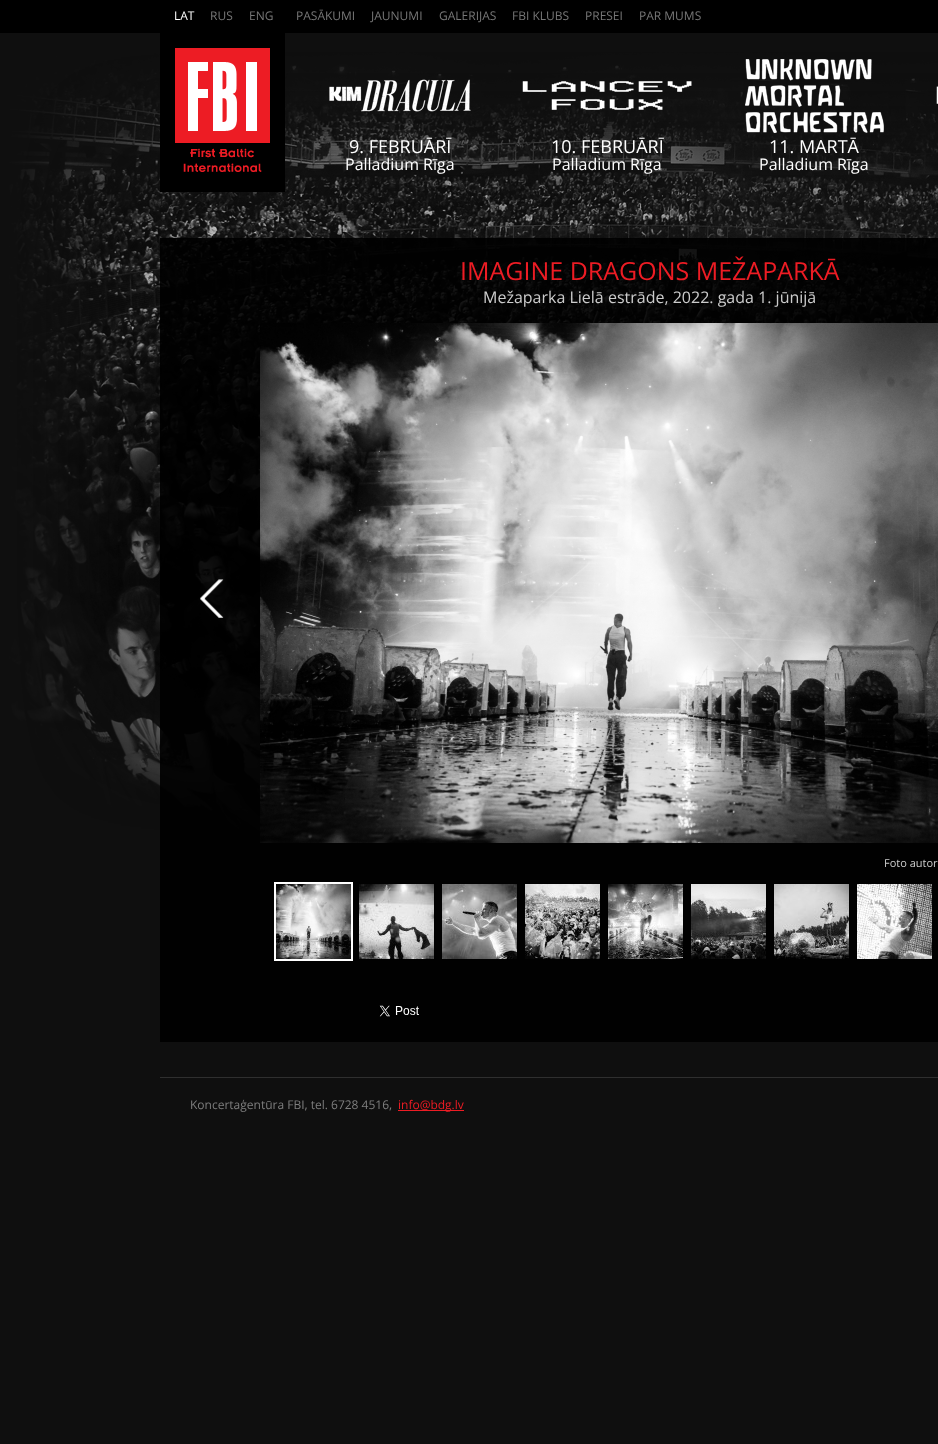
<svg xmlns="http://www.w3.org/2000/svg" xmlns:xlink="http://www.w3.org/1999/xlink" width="938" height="1444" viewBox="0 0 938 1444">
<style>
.cls-1{font:12px Open Sans;fill:#ffffff}
.cls-2{font:12px Open Sans;fill:#777777}
.cls-3{font:18px Open Sans;fill:#ffffff}
.cls-4{font:16px Open Sans;fill:#ffffff}
.cls-5{font:25px Open Sans;fill:#ed1c24}
.cls-6{font:16px Open Sans;fill:#cccccc}
.cls-7{font:11px Open Sans;fill:#cccccc}
.cls-8{font:12px Open Sans;fill:#7e7e7e}
.cls-9{font:12px Open Sans;fill:#ed1c24}
</style>
<rect width="100%" height="100%" fill="#0f0f0f"/>
<rect fill="#000000" x="0" y="0" width="938" height="33"/>
<image xlink:href="image1.png" x="9" y="40" width="929" height="804"/>
<image xlink:href="image0.png" x="0" y="33" width="938" height="857"/>
<rect fill="#000000" x="160" y="33" width="125" height="159"/>
<image xlink:href="image2.png" x="175" y="48" width="95" height="124"/>
<image xlink:href="image3.png" x="936" y="86" width="2" height="18"/>
<image xlink:href="image4.png" x="329" y="79" width="142" height="33"/>
<image xlink:href="image5.png" x="522" y="81" width="170" height="29"/>
<image xlink:href="image6.png" x="745" y="59" width="139" height="74"/>
<rect fill="#000000" fill-opacity="0.9" x="160" y="238" width="778" height="804"/>
<image xlink:href="image7.png" x="200" y="579" width="24" height="39"/>
<image xlink:href="image8.png" x="260" y="323" width="678" height="520"/>
<rect fill="none" stroke="#ffffff" stroke-width="2" x="275" y="883" width="77" height="77"/>
<image xlink:href="image9.png" x="276" y="884" width="75" height="75"/>
<image xlink:href="image10.png" x="359" y="884" width="75" height="75"/>
<image xlink:href="image11.png" x="442" y="884" width="75" height="75"/>
<image xlink:href="image12.png" x="525" y="884" width="75" height="75"/>
<image xlink:href="image13.png" x="608" y="884" width="75" height="75"/>
<image xlink:href="image14.png" x="691" y="884" width="75" height="14"/>
<image xlink:href="image15.png" x="691" y="898" width="75" height="61"/>
<image xlink:href="image16.png" x="774" y="884" width="75" height="4"/>
<image xlink:href="image17.png" x="774" y="888" width="75" height="71"/>
<image xlink:href="image18.png" x="857" y="884" width="75" height="75"/>
<image xlink:href="image19.png" x="379" y="1005" width="40" height="12"/>
<rect fill="#2f2f2f" x="160" y="1077" width="778" height="1"/>
<rect fill="#ed1c24" x="398" y="1110" width="66" height="1"/>
<text class="cls-1" x="174" y="20">LAT</text>
<text class="cls-2" x="210" y="20">RUS</text>
<text class="cls-2" x="249" y="20">ENG</text>
<text class="cls-2" x="296" y="20">PASĀKUMI</text>
<text class="cls-2" x="371" y="20">JAUNUMI</text>
<text class="cls-2" x="439" y="20">GALERIJAS</text>
<text class="cls-2" x="512" y="20">FBI KLUBS</text>
<text class="cls-2" x="585" y="20">PRESEI</text>
<text class="cls-2" x="639" y="20">PAR MUMS</text>
<text class="cls-3" x="349" y="153">9. FEBRUĀRĪ</text>
<text class="cls-4" x="345" y="170">Palladium Rīga</text>
<text class="cls-3" x="551" y="153">10. FEBRUĀRĪ</text>
<text class="cls-4" x="552" y="170">Palladium Rīga</text>
<text class="cls-3" x="769" y="153">11. MARTĀ</text>
<text class="cls-4" x="759" y="170">Palladium Rīga</text>
<text class="cls-5" x="460" y="280">IMAGINE DRAGONS MEŽAPARKĀ</text>
<text class="cls-6" x="483" y="303">Mežaparka Lielā estrāde, 2022. gada 1. jūnijā</text>
<text class="cls-7" x="884" y="867">Foto autor</text>
<text class="cls-8" x="190" y="1109">Koncertaģentūra FBI, tel. 6728 4516,</text>
<text class="cls-9" x="398" y="1109">info@bdg.lv</text>
</svg>
